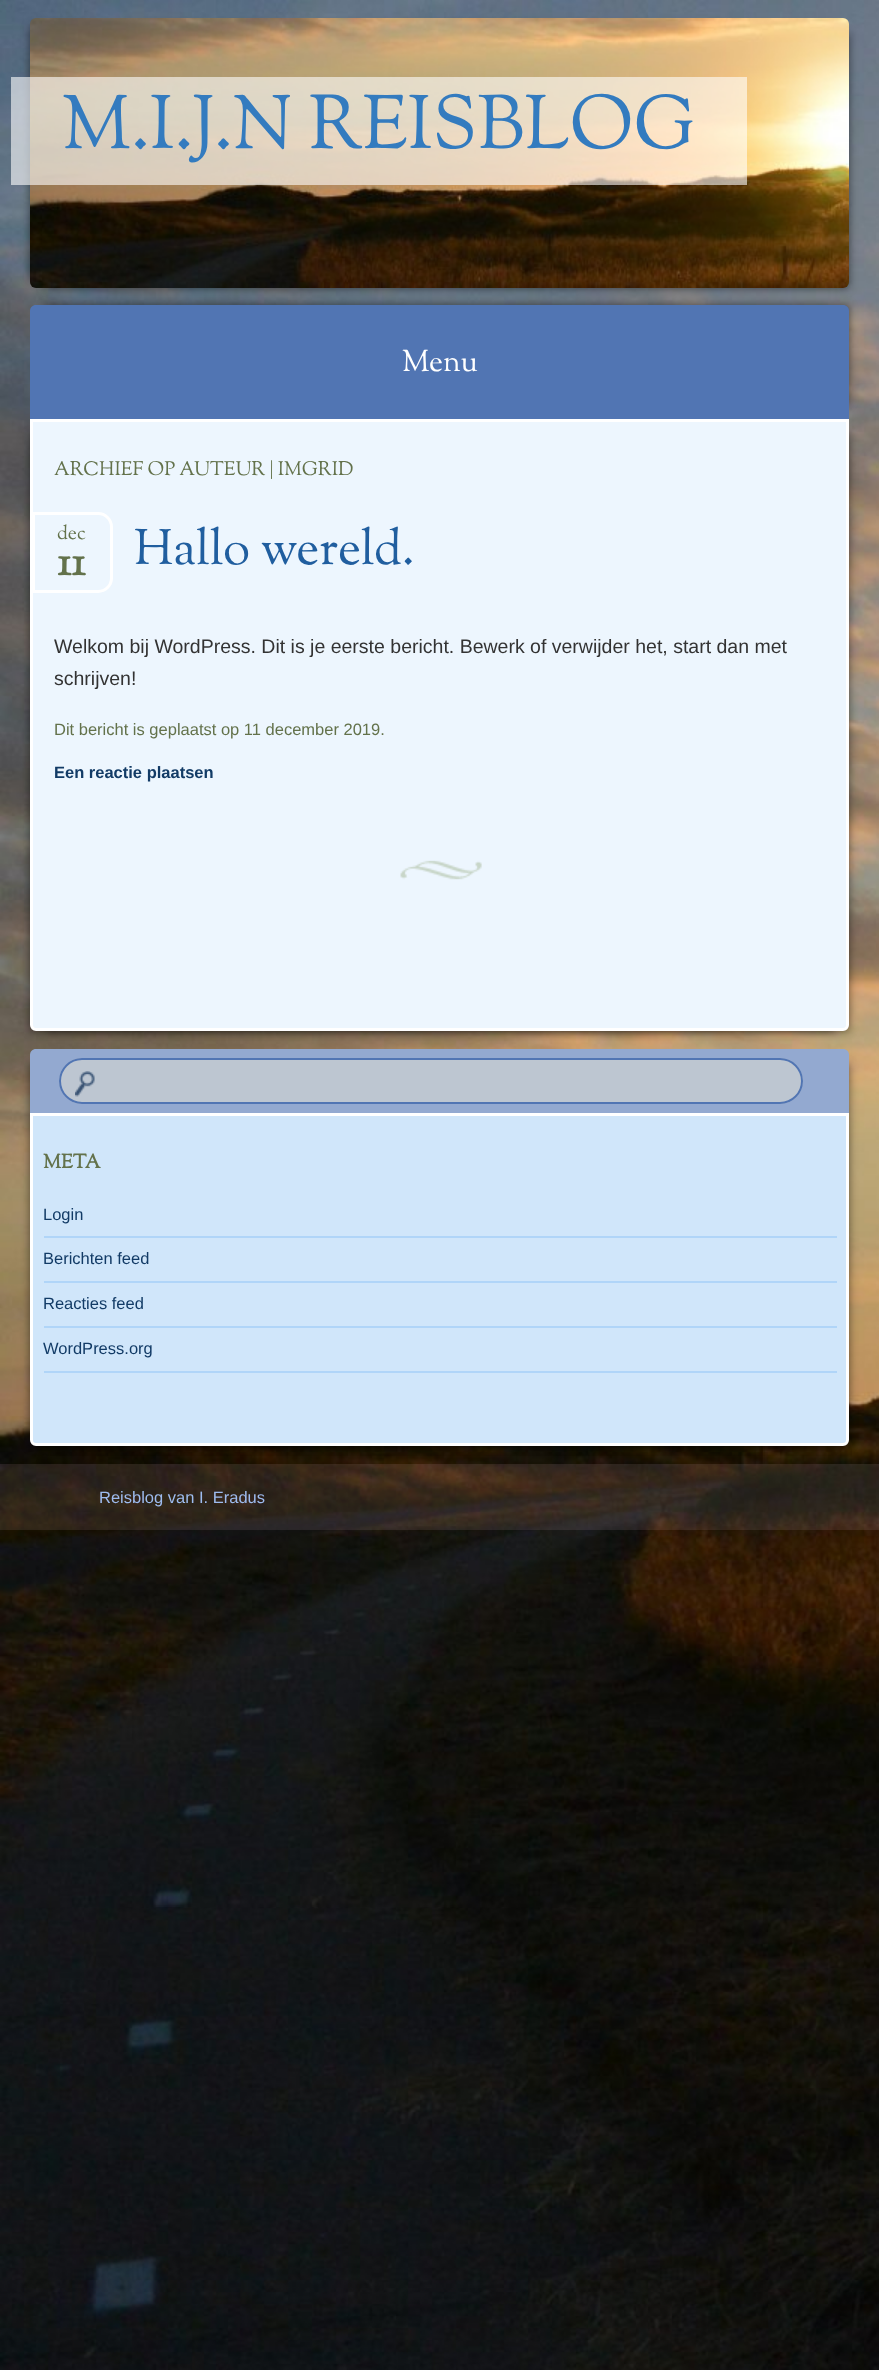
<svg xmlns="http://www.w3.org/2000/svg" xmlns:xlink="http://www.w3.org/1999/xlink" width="879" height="2370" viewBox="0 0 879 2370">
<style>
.cls-1{font:75px Sorts Mill Goudy;fill:#337bbf}
.cls-2{font:30px Sorts Mill Goudy;fill:#ffffff}
.cls-3{font:19.5px Sorts Mill Goudy;fill:#63724b}
.cls-4{font:bold 42px Sorts Mill Goudy;fill:#63724b}
.cls-5{font:49.5px Sorts Mill Goudy;fill:#205e9f}
.cls-6{font:19.5px Liberation Sans;fill:#333333}
.cls-7{font:16.5px Liberation Sans;fill:#63724b}
.cls-8{font:bold 16.5px Liberation Sans;fill:#123b66}
.cls-9{font:bold 19.5px Sorts Mill Goudy;fill:#63724b}
.cls-10{font:16.5px Liberation Sans;fill:#123b66}
.cls-11{font:16.5px Liberation Sans;fill:#9ebcef}
</style>
<rect width="100%" height="100%" fill="#ffffff"/>
<image xlink:href="image0.png" x="0" y="0" width="879" height="2370"/>
<rect fill="#000000" fill-opacity="0.5" filter="blur(4px)" x="30" y="26" width="804" height="255"/>
<rect fill="#000000" fill-opacity="0.5" filter="blur(4px)" x="45" y="33" width="804" height="255"/>
<image xlink:href="image1.png" x="30" y="18" width="819" height="270"/>
<rect fill="#ffffff" fill-opacity="0.6" x="11" y="77" width="736" height="108"/>
<rect fill="#000000" fill-opacity="0.5" filter="blur(4px)" x="45" y="305" width="804" height="99"/>
<path fill="#5175b3" d="M36 305H843C846.5 305 849 307.5 849 311V419H30V311C30 307.5 32.5 305 36 305Z"/>
<rect fill="#000000" fill-opacity="0.5" filter="blur(4px)" x="30" y="434" width="804" height="597"/>
<rect fill="#000000" fill-opacity="0.5" filter="blur(4px)" x="45" y="434" width="804" height="597"/>
<path fill="#edf6fe" stroke="#ffffff" stroke-width="3" d="M31.5 420.5H847.5V1025C847.5 1027.5 845.5 1029.5 843 1029.5H36C33.5 1029.5 31.5 1027.5 31.5 1025Z"/>
<image xlink:href="image2.png" x="400" y="860" width="82" height="20"/>
<path fill="#edf6fe" stroke="#ffffff" stroke-width="3" d="M33.5 513.5H98C105.5 513.5 111.5 519.5 111.5 527V578C111.5 585.5 105.5 591.5 98 591.5H33.5Z"/>
<rect fill="#000000" fill-opacity="0.5" filter="blur(4px)" x="30" y="1064" width="804" height="382"/>
<rect fill="#000000" fill-opacity="0.5" filter="blur(4px)" x="45" y="1064" width="804" height="382"/>
<path fill="#93a9d0" d="M36 1049H843C846.5 1049 849 1051.5 849 1055V1113H30V1055C30 1051.5 32.5 1049 36 1049Z"/>
<rect fill="#bdc6d1" x="59" y="1058" width="744" height="46" rx="23"/>
<image xlink:href="image3.png" x="75" y="1071" width="20" height="26"/>
<rect fill="none" stroke="#5175b3" stroke-width="2" x="60" y="1059" width="742" height="44" rx="22"/>
<path fill="#d0e6fa" stroke="#ffffff" stroke-width="3" d="M31.5 1114.5H847.5V1440C847.5 1442.5 845.5 1444.5 843 1444.5H36C33.5 1444.5 31.5 1442.5 31.5 1440Z"/>
<rect fill="#b0d5f8" x="44" y="1236" width="793" height="2"/>
<rect fill="#b0d5f8" x="44" y="1281" width="793" height="2"/>
<rect fill="#b0d5f8" x="44" y="1326" width="793" height="2"/>
<rect fill="#b0d5f8" x="44" y="1371" width="793" height="2"/>
<rect fill="#ffd8e8" fill-opacity="0.1" x="0" y="1464" width="879" height="66"/>
<text class="cls-1" x="62" y="148">M.I.J.N REISBLOG</text>
<text class="cls-2" x="402" y="371">Menu</text>
<text class="cls-3" x="54" y="475">ARCHIEF OP AUTEUR | IMGRID</text>
<text class="cls-3" x="57" y="539">dec</text>
<text class="cls-4" x="57" y="575">11</text>
<text class="cls-5" x="134" y="564">Hallo wereld.</text>
<text class="cls-6"><tspan x="54" y="653">Welkom bij WordPress. Dit is je eerste bericht. Bewerk of verwijder het, start dan met</tspan><tspan x="54" y="685">schrijven!</tspan></text>
<text class="cls-7" x="54" y="735">Dit bericht is geplaatst op 11 december 2019.</text>
<text class="cls-8" x="54" y="778">Een reactie plaatsen</text>
<text class="cls-9" x="43" y="1168">META</text>
<text class="cls-10" x="43" y="1220">Login</text>
<text class="cls-10" x="43" y="1264">Berichten feed</text>
<text class="cls-10" x="43" y="1309">Reacties feed</text>
<text class="cls-10" x="43" y="1354">WordPress.org</text>
<text class="cls-11" x="99" y="1503">Reisblog van I. Eradus</text>
</svg>
